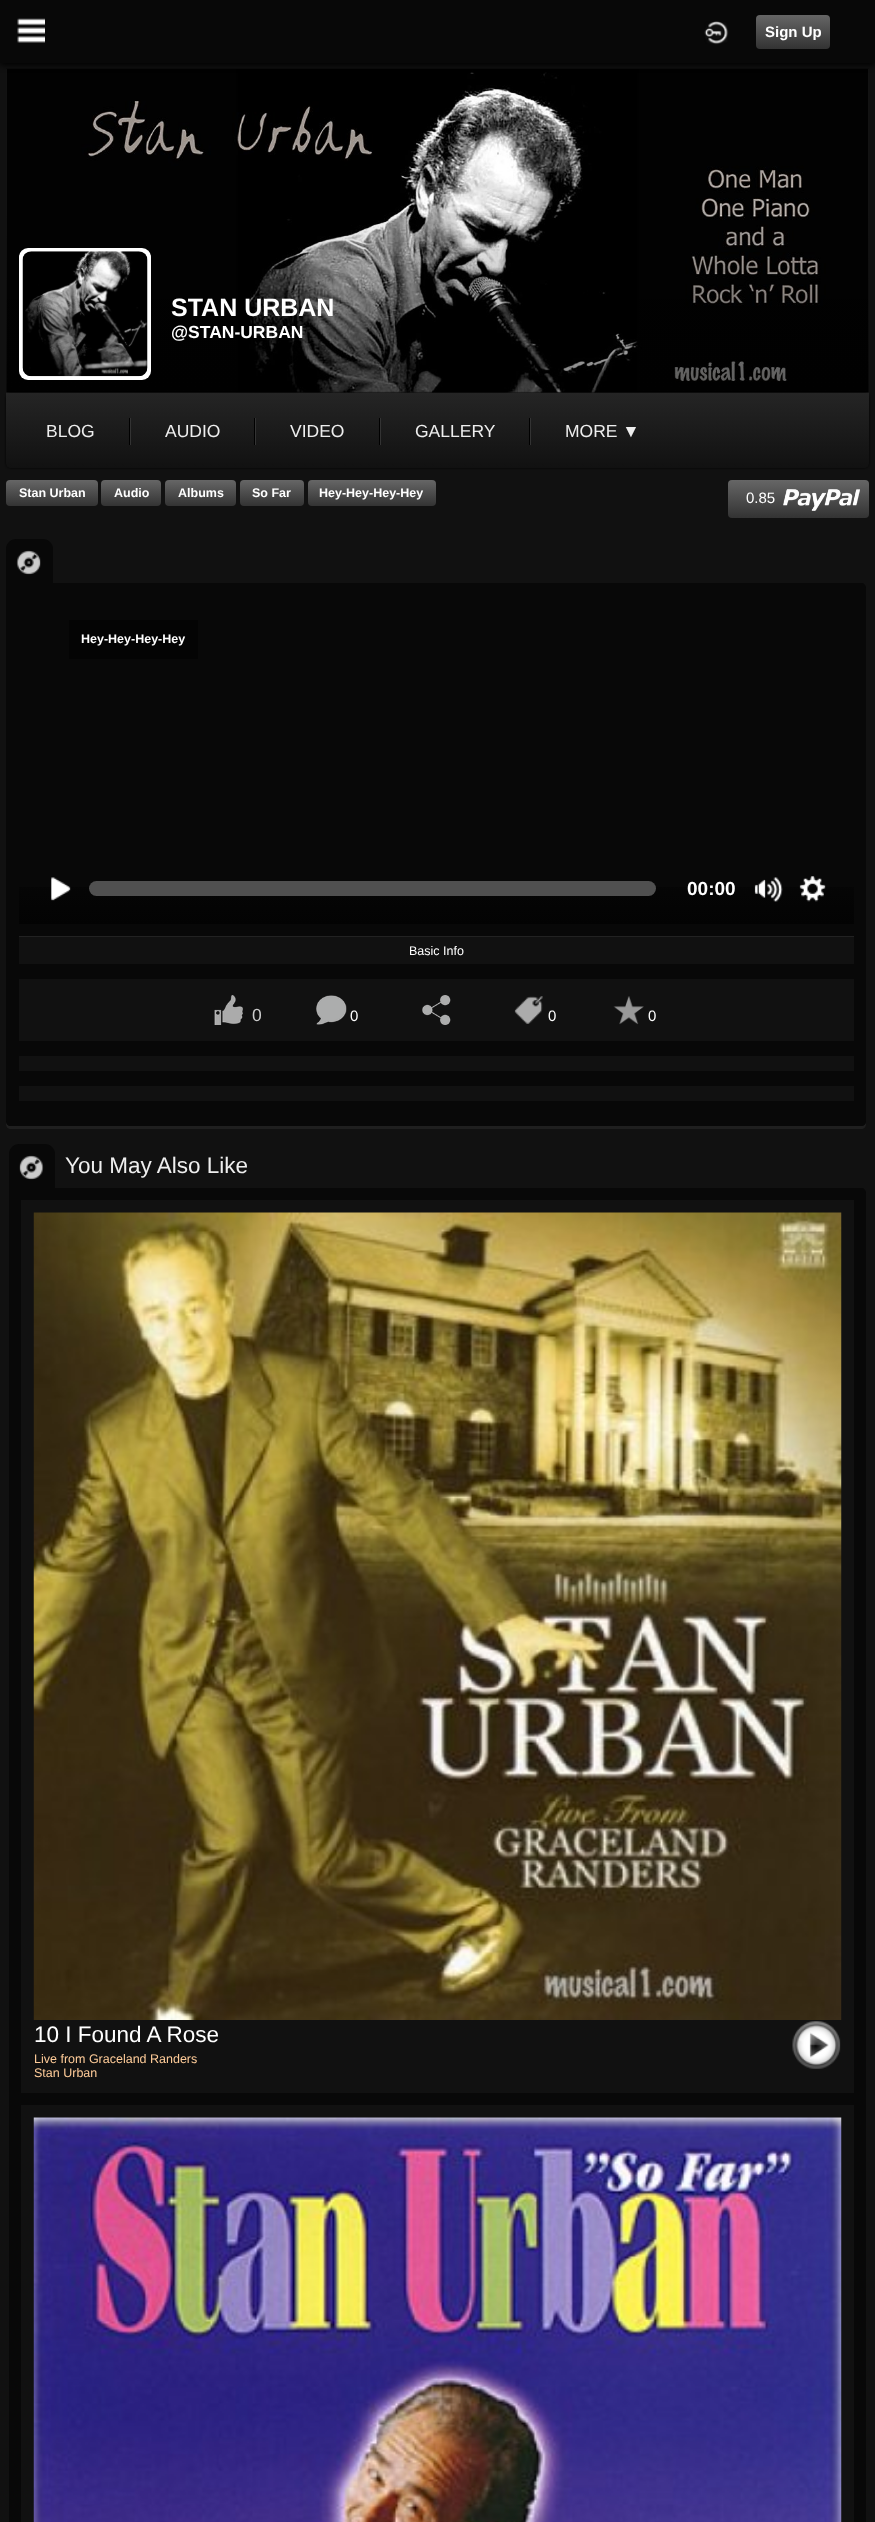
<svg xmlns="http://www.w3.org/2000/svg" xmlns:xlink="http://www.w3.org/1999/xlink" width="875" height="2522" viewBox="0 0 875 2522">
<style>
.cls-1{font:bold 15px Liberation Sans;fill:#ffffff}
.cls-2{font:bold 25px Liberation Sans;fill:#ffffff}
.cls-3{font:bold 17.5px Liberation Sans;fill:#ffffff}
.cls-4{font:17.5px Liberation Sans;fill:#eeeeee}
.cls-5{font:bold 12.5px Liberation Sans;fill:#ffffff}
.cls-6{font:15px Liberation Sans;fill:#ffffff}
.cls-7{font:bold 19px Liberation Sans;fill:#ffffff}
.cls-8{font:12.5px Liberation Sans;fill:#ffffff}
.cls-9{font:17.5px Liberation Sans;fill:#cccccc}
.cls-10{font:22.5px Liberation Sans;fill:#eeeeee}
.cls-11{font:22.5px Liberation Sans;fill:#ffffff}
.cls-12{font:12.5px Liberation Sans;fill:#ffcc99}
</style>
<defs>
<linearGradient id="g1" gradientUnits="userSpaceOnUse" x1="793" y1="15" x2="793" y2="49"><stop offset="0" stop-color="#666666"/><stop offset="1" stop-color="#333333"/></linearGradient>
<linearGradient id="g2" gradientUnits="userSpaceOnUse" x1="438" y1="205" x2="438" y2="393"><stop offset="0" stop-color="#000000" stop-opacity="0"/><stop offset="1" stop-color="#000000" stop-opacity="0.5"/></linearGradient>
<linearGradient id="g3" gradientUnits="userSpaceOnUse" x1="438" y1="392" x2="438" y2="468"><stop offset="0" stop-color="#252525"/><stop offset="1" stop-color="#111111"/></linearGradient>
<linearGradient id="g4" gradientUnits="userSpaceOnUse" x1="52" y1="480" x2="52" y2="506"><stop offset="0" stop-color="#666666"/><stop offset="1" stop-color="#333333"/></linearGradient>
<linearGradient id="g5" gradientUnits="userSpaceOnUse" x1="131" y1="480" x2="131" y2="506"><stop offset="0" stop-color="#666666"/><stop offset="1" stop-color="#333333"/></linearGradient>
<linearGradient id="g6" gradientUnits="userSpaceOnUse" x1="201" y1="480" x2="201" y2="506"><stop offset="0" stop-color="#666666"/><stop offset="1" stop-color="#333333"/></linearGradient>
<linearGradient id="g7" gradientUnits="userSpaceOnUse" x1="272" y1="480" x2="272" y2="506"><stop offset="0" stop-color="#666666"/><stop offset="1" stop-color="#333333"/></linearGradient>
<linearGradient id="g8" gradientUnits="userSpaceOnUse" x1="372" y1="480" x2="372" y2="506"><stop offset="0" stop-color="#666666"/><stop offset="1" stop-color="#333333"/></linearGradient>
<linearGradient id="g9" gradientUnits="userSpaceOnUse" x1="798" y1="480" x2="798" y2="518"><stop offset="0" stop-color="#666666"/><stop offset="1" stop-color="#333333"/></linearGradient>
<linearGradient id="g10" gradientUnits="userSpaceOnUse" x1="436" y1="849" x2="436" y2="924"><stop offset="0" stop-color="#080808"/><stop offset="1" stop-color="#030303"/></linearGradient>
</defs>
<rect width="100%" height="100%" fill="#111111"/>
<rect fill="#444444" x="6" y="69" width="863" height="324"/>
<image xlink:href="image2.png" x="6" y="68" width="863" height="325"/>
<rect fill="#000000" filter="blur(3px)" x="0" y="3" width="875" height="62"/>
<rect fill="#080808" x="0" y="0" width="875" height="63"/>
<image xlink:href="image0.png" x="17" y="18" width="28" height="25"/>
<image xlink:href="image1.png" x="704" y="21" width="25" height="24"/>
<rect fill="url(#g1)" x="756" y="15" width="74" height="34" rx="4"/>
<rect fill="url(#g2)" x="6" y="213" width="863" height="180"/>
<rect fill="#ffffff" x="19" y="248" width="132" height="132" rx="9"/>
<image xlink:href="image3.png" x="22" y="251" width="126" height="126"/>
<rect fill="#000000" filter="blur(1px)" x="6" y="393" width="863" height="75" rx="5"/>
<path fill="url(#g3)" d="M6 393H869V463C869 466 867 468 864 468H11C8 468 6 466 6 463Z"/>
<rect fill="#000000" x="129" y="418" width="1" height="27"/>
<rect fill="#000000" x="254" y="418" width="1" height="27"/>
<rect fill="#333333" x="130" y="418" width="1" height="27"/>
<rect fill="#000000" x="379" y="418" width="1" height="27"/>
<rect fill="#333333" x="255" y="418" width="1" height="27"/>
<rect fill="#000000" x="529" y="418" width="1" height="27"/>
<rect fill="#333333" x="380" y="418" width="1" height="27"/>
<rect fill="#333333" x="530" y="418" width="1" height="27"/>
<rect fill="url(#g4)" x="6" y="480" width="92" height="26" rx="4"/>
<rect fill="url(#g5)" x="101" y="480" width="60" height="26" rx="4"/>
<rect fill="url(#g6)" x="165" y="480" width="71" height="26" rx="4"/>
<rect fill="url(#g7)" x="240" y="480" width="64" height="26" rx="4"/>
<rect fill="url(#g8)" x="308" y="480" width="128" height="26" rx="4"/>
<rect fill="url(#g9)" x="728" y="480" width="141" height="38" rx="4"/>
<image xlink:href="image4.png" x="783" y="489" width="77" height="22"/>
<path fill="#1f1f1f" d="M6 585V1124C6 1127 8 1129 11 1129H861C864 1129 866 1127 866 1124V1123C865 1125 863 1126 861 1126H11C8 1126 6 1124 6 1121Z"/>
<path fill="#080808" d="M6 583H861C864 583 866 585 866 588V1121C866 1124 864 1126 861 1126H11C8 1126 6 1124 6 1121Z"/>
<path fill="#080808" d="M16 539H43C48.5 539 53 543.5 53 549V588H6V549C6 543.5 10.5 539 16 539Z"/>
<image xlink:href="image5.png" x="16" y="550" width="25" height="25"/>
<rect fill="#040404" x="69" y="620" width="129" height="39"/>
<rect fill="url(#g10)" x="19" y="887" width="835" height="37"/>
<image xlink:href="image6.png" x="51" y="877" width="20" height="24"/>
<rect fill="#505050" x="89" y="881" width="567" height="15" rx="7.5"/>
<image xlink:href="image7.png" x="754" y="877" width="29" height="25"/>
<image xlink:href="image8.png" x="799" y="876" width="27" height="26"/>
<rect fill="#111111" x="19" y="937" width="835" height="27"/>
<rect fill="#222222" x="19" y="936" width="835" height="1"/>
<rect fill="#111111" x="19" y="979" width="835" height="62"/>
<image xlink:href="image9.png" x="214" y="995" width="29" height="30"/>
<image xlink:href="image10.png" x="316" y="995" width="31" height="30"/>
<image xlink:href="image11.png" x="422" y="995" width="29" height="30"/>
<image xlink:href="image12.png" x="514" y="996" width="29" height="28"/>
<image xlink:href="image13.png" x="613" y="996" width="31" height="29"/>
<rect fill="#111111" x="19" y="1056" width="835" height="15"/>
<rect fill="#111111" x="19" y="1086" width="835" height="15"/>
<path fill="#080808" d="M9 1188H861C864 1188 866 1190 866 1193V2522C866 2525 864 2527 861 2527H14C11 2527 9 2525 9 2522Z"/>
<path fill="#080808" d="M19 1144H45C50.5 1144 55 1148.5 55 1154V1193H9V1154C9 1148.5 13.5 1144 19 1144Z"/>
<image xlink:href="image14.png" x="19" y="1155" width="25" height="25"/>
<rect fill="#111111" x="21" y="1200" width="833" height="893"/>
<image xlink:href="image15.png" x="33" y="1212" width="809" height="808"/>
<image xlink:href="image16.png" x="792" y="2021" width="49" height="48"/>
<rect fill="#111111" x="21" y="2105" width="833" height="417"/>
<image xlink:href="image17.png" x="33" y="2117" width="809" height="405"/>
<text class="cls-1" x="765" y="37">Sign Up</text>
<text class="cls-2" x="171" y="316">STAN URBAN</text>
<text class="cls-3" x="171" y="338">@STAN-URBAN</text>
<text class="cls-4" x="46" y="437">BLOG</text>
<text class="cls-4" x="165" y="437">AUDIO</text>
<text class="cls-4" x="290" y="437">VIDEO</text>
<text class="cls-4" x="415" y="437">GALLERY</text>
<text class="cls-4" x="565" y="437">MORE ▼</text>
<text class="cls-5" x="19" y="497">Stan Urban</text>
<text class="cls-5" x="114" y="497">Audio</text>
<text class="cls-5" x="178" y="497">Albums</text>
<text class="cls-5" x="252" y="497">So Far</text>
<text class="cls-5" x="319" y="497">Hey-Hey-Hey-Hey</text>
<text class="cls-6" x="746" y="503">0.85</text>
<text class="cls-5" x="81" y="643">Hey-Hey-Hey-Hey</text>
<text class="cls-7" x="687" y="895">00:00</text>
<text class="cls-8" x="409" y="955">Basic Info</text>
<text class="cls-9" x="252" y="1021">0</text>
<text class="cls-6" x="350" y="1021">0</text>
<text class="cls-6" x="548" y="1021">0</text>
<text class="cls-6" x="648" y="1021">0</text>
<text class="cls-10" x="65" y="1173">You May Also Like</text>
<text class="cls-11" x="34" y="2042">10 I Found A Rose</text>
<text class="cls-12"><tspan x="34" y="2063">Live from Graceland Randers</tspan><tspan x="34" y="2077">Stan Urban</tspan></text>
</svg>
